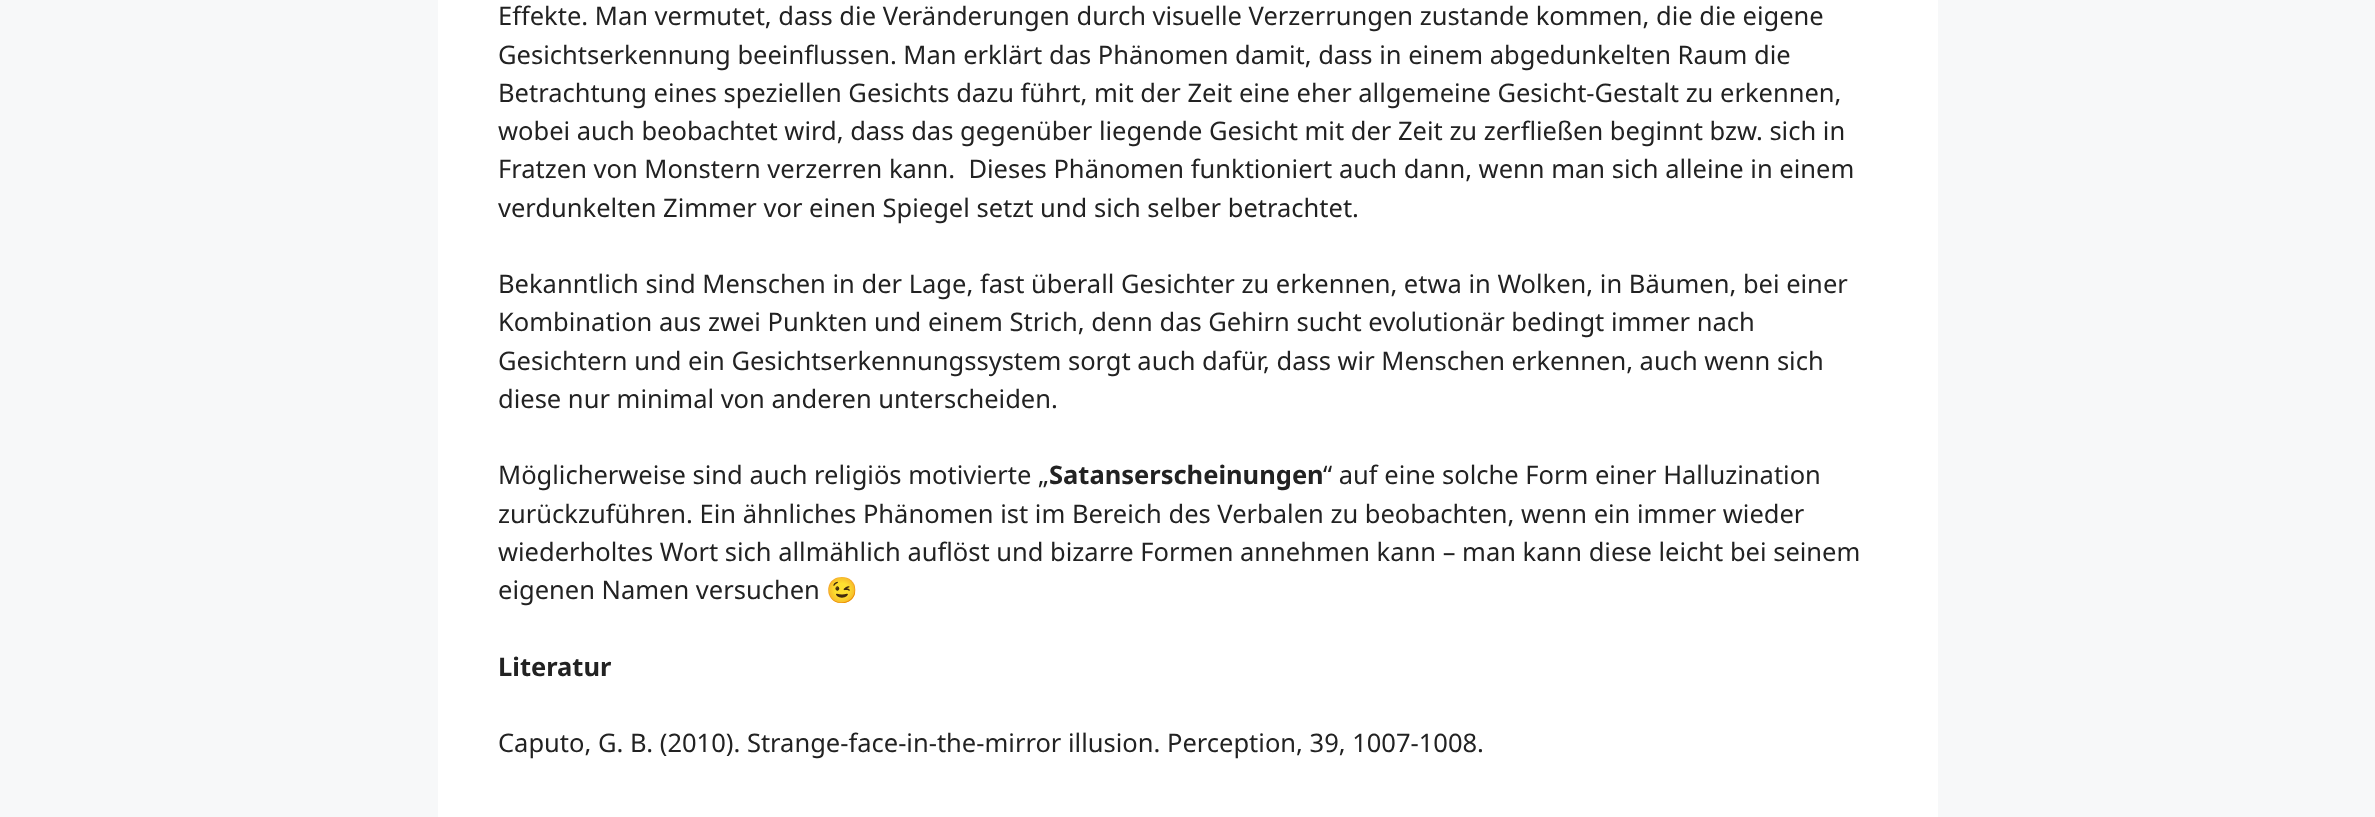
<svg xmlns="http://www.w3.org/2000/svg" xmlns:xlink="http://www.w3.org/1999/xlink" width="2375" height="817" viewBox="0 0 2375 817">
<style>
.cls-1{font:25.5px Noto Sans;fill:#222222}
.cls-2{font:bold 25.5px Noto Sans;fill:#222222}
.cls-3{font:25.5px Noto Color Emoji;fill:#222222}
</style>
<rect width="100%" height="100%" fill="#f7f8f9"/>
<rect fill="#ffffff" x="438" y="0" width="1500" height="817"/>
<text class="cls-1" xml:space="preserve"><tspan x="498" y="25">Effekte. Man vermutet, dass die Veränderungen durch visuelle Verzerrungen zustande kommen, die die eigene</tspan><tspan x="498" y="64">Gesichtserkennung beeinflussen. Man erklärt das Phänomen damit, dass in einem abgedunkelten Raum die</tspan><tspan x="498" y="102">Betrachtung eines speziellen Gesichts dazu führt, mit der Zeit eine eher allgemeine Gesicht-Gestalt zu erkennen,</tspan><tspan x="498" y="140">wobei auch beobachtet wird, dass das gegenüber liegende Gesicht mit der Zeit zu zerfließen beginnt bzw. sich in</tspan><tspan x="498" y="178">Fratzen von Monstern verzerren kann.  Dieses Phänomen funktioniert auch dann, wenn man sich alleine in einem</tspan><tspan x="498" y="217">verdunkelten Zimmer vor einen Spiegel setzt und sich selber betrachtet.</tspan></text>
<text class="cls-1"><tspan x="498" y="293">Bekanntlich sind Menschen in der Lage, fast überall Gesichter zu erkennen, etwa in Wolken, in Bäumen, bei einer</tspan><tspan x="498" y="331">Kombination aus zwei Punkten und einem Strich, denn das Gehirn sucht evolutionär bedingt immer nach</tspan><tspan x="498" y="370">Gesichtern und ein Gesichtserkennungssystem sorgt auch dafür, dass wir Menschen erkennen, auch wenn sich</tspan><tspan x="498" y="408">diese nur minimal von anderen unterscheiden.</tspan></text>
<text class="cls-1" x="498" y="484">Möglicherweise sind auch religiös motivierte „</text>
<text class="cls-2" x="1049" y="484">Satanserscheinungen</text>
<text class="cls-1" x="1323" y="484">“ auf eine solche Form einer Halluzination</text>
<text class="cls-1"><tspan x="498" y="523">zurückzuführen. Ein ähnliches Phänomen ist im Bereich des Verbalen zu beobachten, wenn ein immer wieder</tspan><tspan x="498" y="561">wiederholtes Wort sich allmählich auflöst und bizarre Formen annehmen kann – man kann diese leicht bei seinem</tspan><tspan x="498" y="599">eigenen Namen versuchen</tspan></text>
<text class="cls-3" x="826" y="599">😉</text>
<text class="cls-2" x="498" y="676">Literatur</text>
<text class="cls-1" x="498" y="752">Caputo, G. B. (2010). Strange-face-in-the-mirror illusion. Perception, 39, 1007-1008.</text>
</svg>
